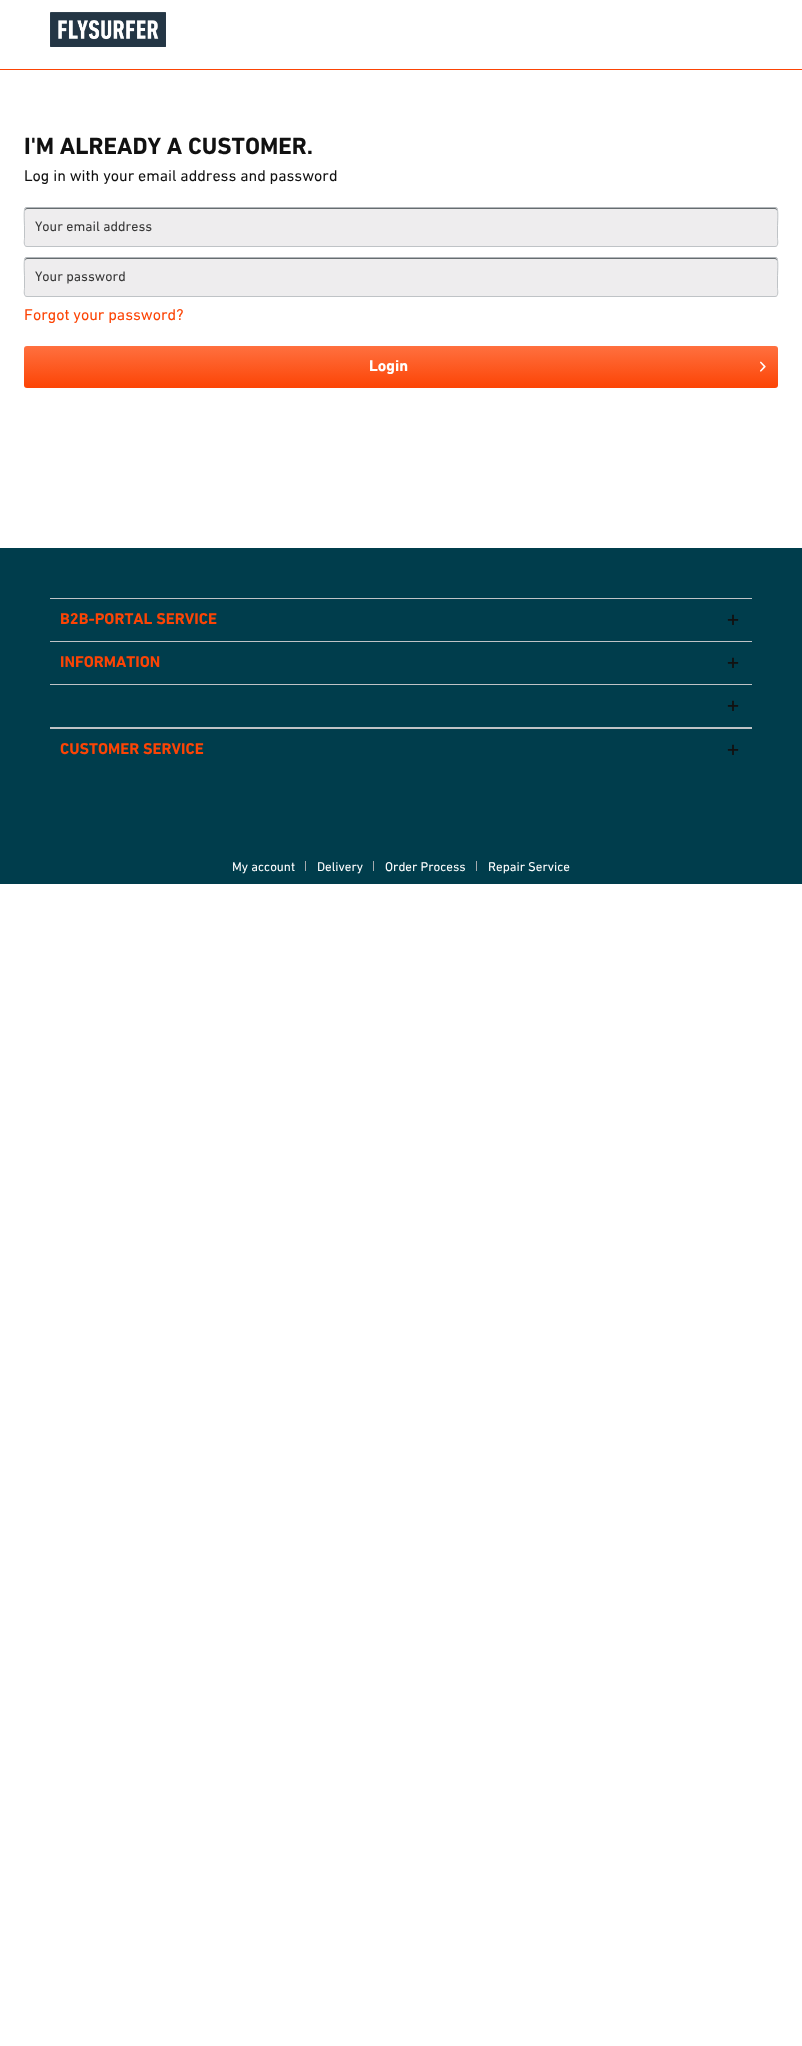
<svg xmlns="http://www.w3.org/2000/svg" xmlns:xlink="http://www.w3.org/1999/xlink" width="802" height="2046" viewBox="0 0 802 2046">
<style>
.cls-1{font:24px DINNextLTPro;fill:#111111}
.cls-2{font:16px 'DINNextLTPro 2';fill:#111111}
.cls-3{font:14px 'DINNextLTPro 2';fill:#373737}
.cls-4{font:16px 'DINNextLTPro 2';fill:#fc4405}
.cls-5{font:16px DINNextLTPro;fill:#ffffff}
.cls-6{font:16px DINNextLTPro;fill:#fc4405}
.cls-7{font:13px 'DINNextLTPro 2';fill:#ffffff}
</style>
<defs>
<linearGradient id="g1" gradientUnits="userSpaceOnUse" x1="401" y1="346" x2="401" y2="388"><stop offset="0" stop-color="#ff703f"/><stop offset="1" stop-color="#fc4405"/></linearGradient>
</defs>
<rect width="100%" height="100%" fill="#ffffff"/>
<rect fill="#fc4405" x="0" y="69" width="802" height="1"/>
<image xlink:href="image0.png" x="50" y="12" width="116" height="35"/>
<rect fill="#eeedee" x="24" y="207" width="754" height="40" rx="3"/>
<path fill="#666d70" d="M27 209H775C776 209 777 210 777 211C777 210 777 208 775 208H27C25 208 25 210 25 211C25 210 26 209 27 209Z"/>
<path fill="none" stroke="#b2b6ba" d="M25 208L27 207.5H775L777 208"/>
<path fill="none" stroke="#bfc3c6" d="M777 208C778.5 210 777.5 224 777.5 227V238.5C777.5 240 779 246.5 775 246.5H27C23 246.5 24.5 240 24.5 238.5V227C24.5 224 23.5 210 25 208"/>
<rect fill="#eeedee" x="24" y="257" width="754" height="40" rx="3"/>
<path fill="#666d70" d="M27 259H775C776 259 777 260 777 261C777 260 777 258 775 258H27C25 258 25 260 25 261C25 260 26 259 27 259Z"/>
<path fill="none" stroke="#b2b6ba" d="M25 258L27 257.5H775L777 258"/>
<path fill="none" stroke="#bfc3c6" d="M777 258C778.5 260 777.5 274 777.5 277V288.5C777.5 290 779 296.5 775 296.5H27C23 296.5 24.5 290 24.5 288.5V277C24.5 274 23.5 260 25 258"/>
<rect fill="url(#g1)" x="24" y="346" width="754" height="42" rx="3"/>
<image xlink:href="image1.png" x="760" y="361" width="6" height="11"/>
<rect fill="#003d4c" x="0" y="548" width="802" height="336"/>
<rect fill="#bfc3c6" x="50" y="598" width="702" height="1"/>
<image xlink:href="image2.png" x="727" y="614" width="12" height="11"/>
<rect fill="#bfc3c6" x="50" y="641" width="702" height="1"/>
<image xlink:href="image2.png" x="727" y="657" width="12" height="11"/>
<rect fill="#bfc3c6" x="50" y="684" width="702" height="1"/>
<rect fill="#bfc3c6" x="50" y="727" width="702" height="2"/>
<image xlink:href="image2.png" x="727" y="700" width="12" height="11"/>
<image xlink:href="image2.png" x="727" y="744" width="12" height="11"/>
<rect fill="#a4aaae" x="305" y="861" width="1" height="10"/>
<rect fill="#a4aaae" x="373" y="861" width="1" height="10"/>
<rect fill="#a4aaae" x="476" y="861" width="1" height="10"/>
<text class="cls-1" x="24" y="154">I'M ALREADY A CUSTOMER.</text>
<text class="cls-2" x="24" y="181">Log in with your email address and password</text>
<text class="cls-3" x="35" y="231">Your email address</text>
<text class="cls-3" x="35" y="281">Your password</text>
<text class="cls-4" x="24" y="320">Forgot your password?</text>
<text class="cls-5" x="369" y="371">Login</text>
<text class="cls-6" x="60" y="624">B2B-PORTAL SERVICE</text>
<text class="cls-6" x="60" y="667">INFORMATION</text>
<text class="cls-6" x="60" y="754">CUSTOMER SERVICE</text>
<text class="cls-7" x="232" y="871">My account</text>
<text class="cls-7" x="317" y="871">Delivery</text>
<text class="cls-7" x="385" y="871">Order Process</text>
<text class="cls-7" x="488" y="871">Repair Service</text>
</svg>
